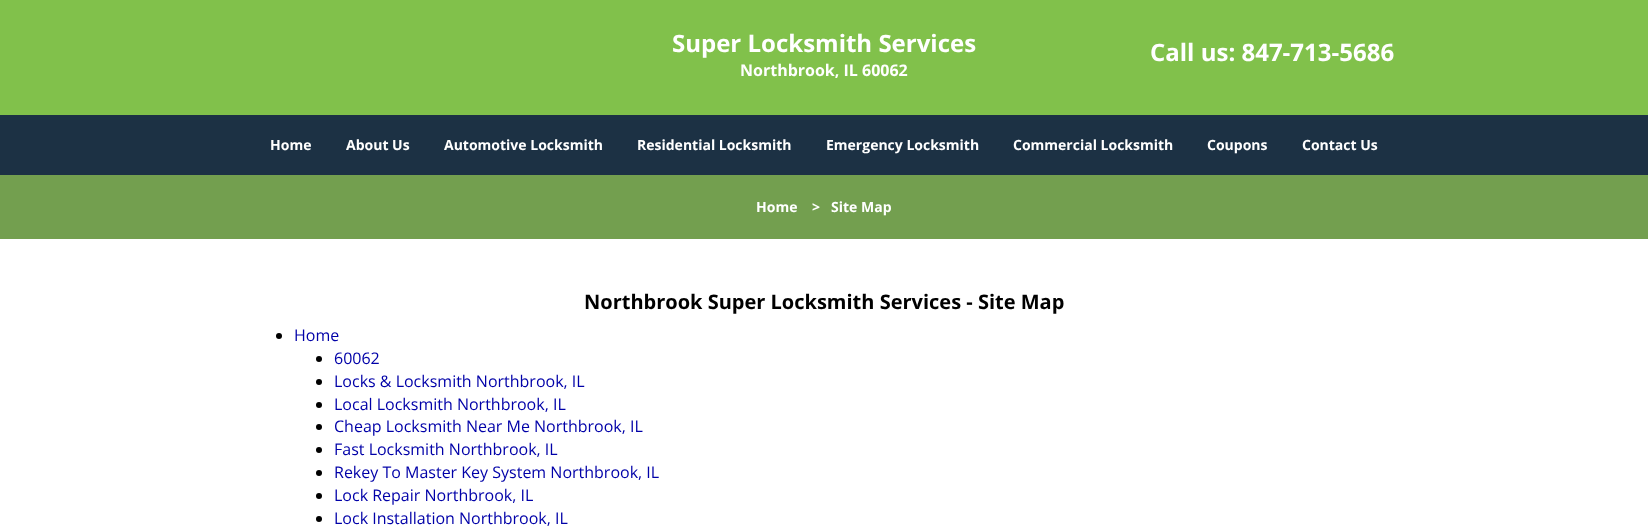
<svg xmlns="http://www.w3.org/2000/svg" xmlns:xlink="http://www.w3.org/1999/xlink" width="1648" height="529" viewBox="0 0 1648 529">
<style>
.cls-1{font:bold 24px Open Sans;fill:#ffffff}
.cls-2{font:bold 16px Open Sans;fill:#ffffff}
.cls-3{font:bold 14px Open Sans;fill:#ffffff}
.cls-4{font:bold 20px Open Sans;fill:#000000}
.cls-5{font:16px Open Sans;fill:#0000a8}
</style>
<rect width="100%" height="100%" fill="#ffffff"/>
<rect fill="#81c14b" x="0" y="0" width="1648" height="115"/>
<rect fill="#1c3144" x="0" y="115" width="1648" height="60"/>
<rect fill="#739f4f" x="0" y="175" width="1648" height="64"/>
<circle fill="#000000" cx="279" cy="336" r="3"/>
<circle fill="#000000" cx="319" cy="359" r="3"/>
<circle fill="#000000" cx="319" cy="382" r="3"/>
<circle fill="#000000" cx="319" cy="405" r="3"/>
<circle fill="#000000" cx="319" cy="427" r="3"/>
<circle fill="#000000" cx="319" cy="450" r="3"/>
<circle fill="#000000" cx="319" cy="473" r="3"/>
<circle fill="#000000" cx="319" cy="496" r="3"/>
<circle fill="#000000" cx="319" cy="519" r="3"/>
<text class="cls-1" x="672" y="52">Super Locksmith Services</text>
<text class="cls-2" x="740" y="76">Northbrook, IL 60062</text>
<text class="cls-1" x="1150" y="61">Call us: 847-713-5686</text>
<text class="cls-3" x="270" y="150">Home</text>
<text class="cls-3" x="346" y="150">About Us</text>
<text class="cls-3" x="444" y="150">Automotive Locksmith</text>
<text class="cls-3" x="637" y="150">Residential Locksmith</text>
<text class="cls-3" x="826" y="150">Emergency Locksmith</text>
<text class="cls-3" x="1013" y="150">Commercial Locksmith</text>
<text class="cls-3" x="1207" y="150">Coupons</text>
<text class="cls-3" x="1302" y="150">Contact Us</text>
<text class="cls-3" x="756" y="212">Home</text>
<text class="cls-3" x="812" y="212">&gt;</text>
<text class="cls-3" x="831" y="212">Site Map</text>
<text class="cls-4" x="584" y="309">Northbrook Super Locksmith Services - Site Map</text>
<text class="cls-5" x="294" y="341">Home</text>
<text class="cls-5"><tspan x="334" y="364">60062</tspan><tspan x="334" y="387">Locks &amp; Locksmith Northbrook, IL</tspan><tspan x="334" y="410">Local Locksmith Northbrook, IL</tspan><tspan x="334" y="432">Cheap Locksmith Near Me Northbrook, IL</tspan><tspan x="334" y="455">Fast Locksmith Northbrook, IL</tspan><tspan x="334" y="478">Rekey To Master Key System Northbrook, IL</tspan><tspan x="334" y="501">Lock Repair Northbrook, IL</tspan><tspan x="334" y="524">Lock Installation Northbrook, IL</tspan></text>
</svg>
